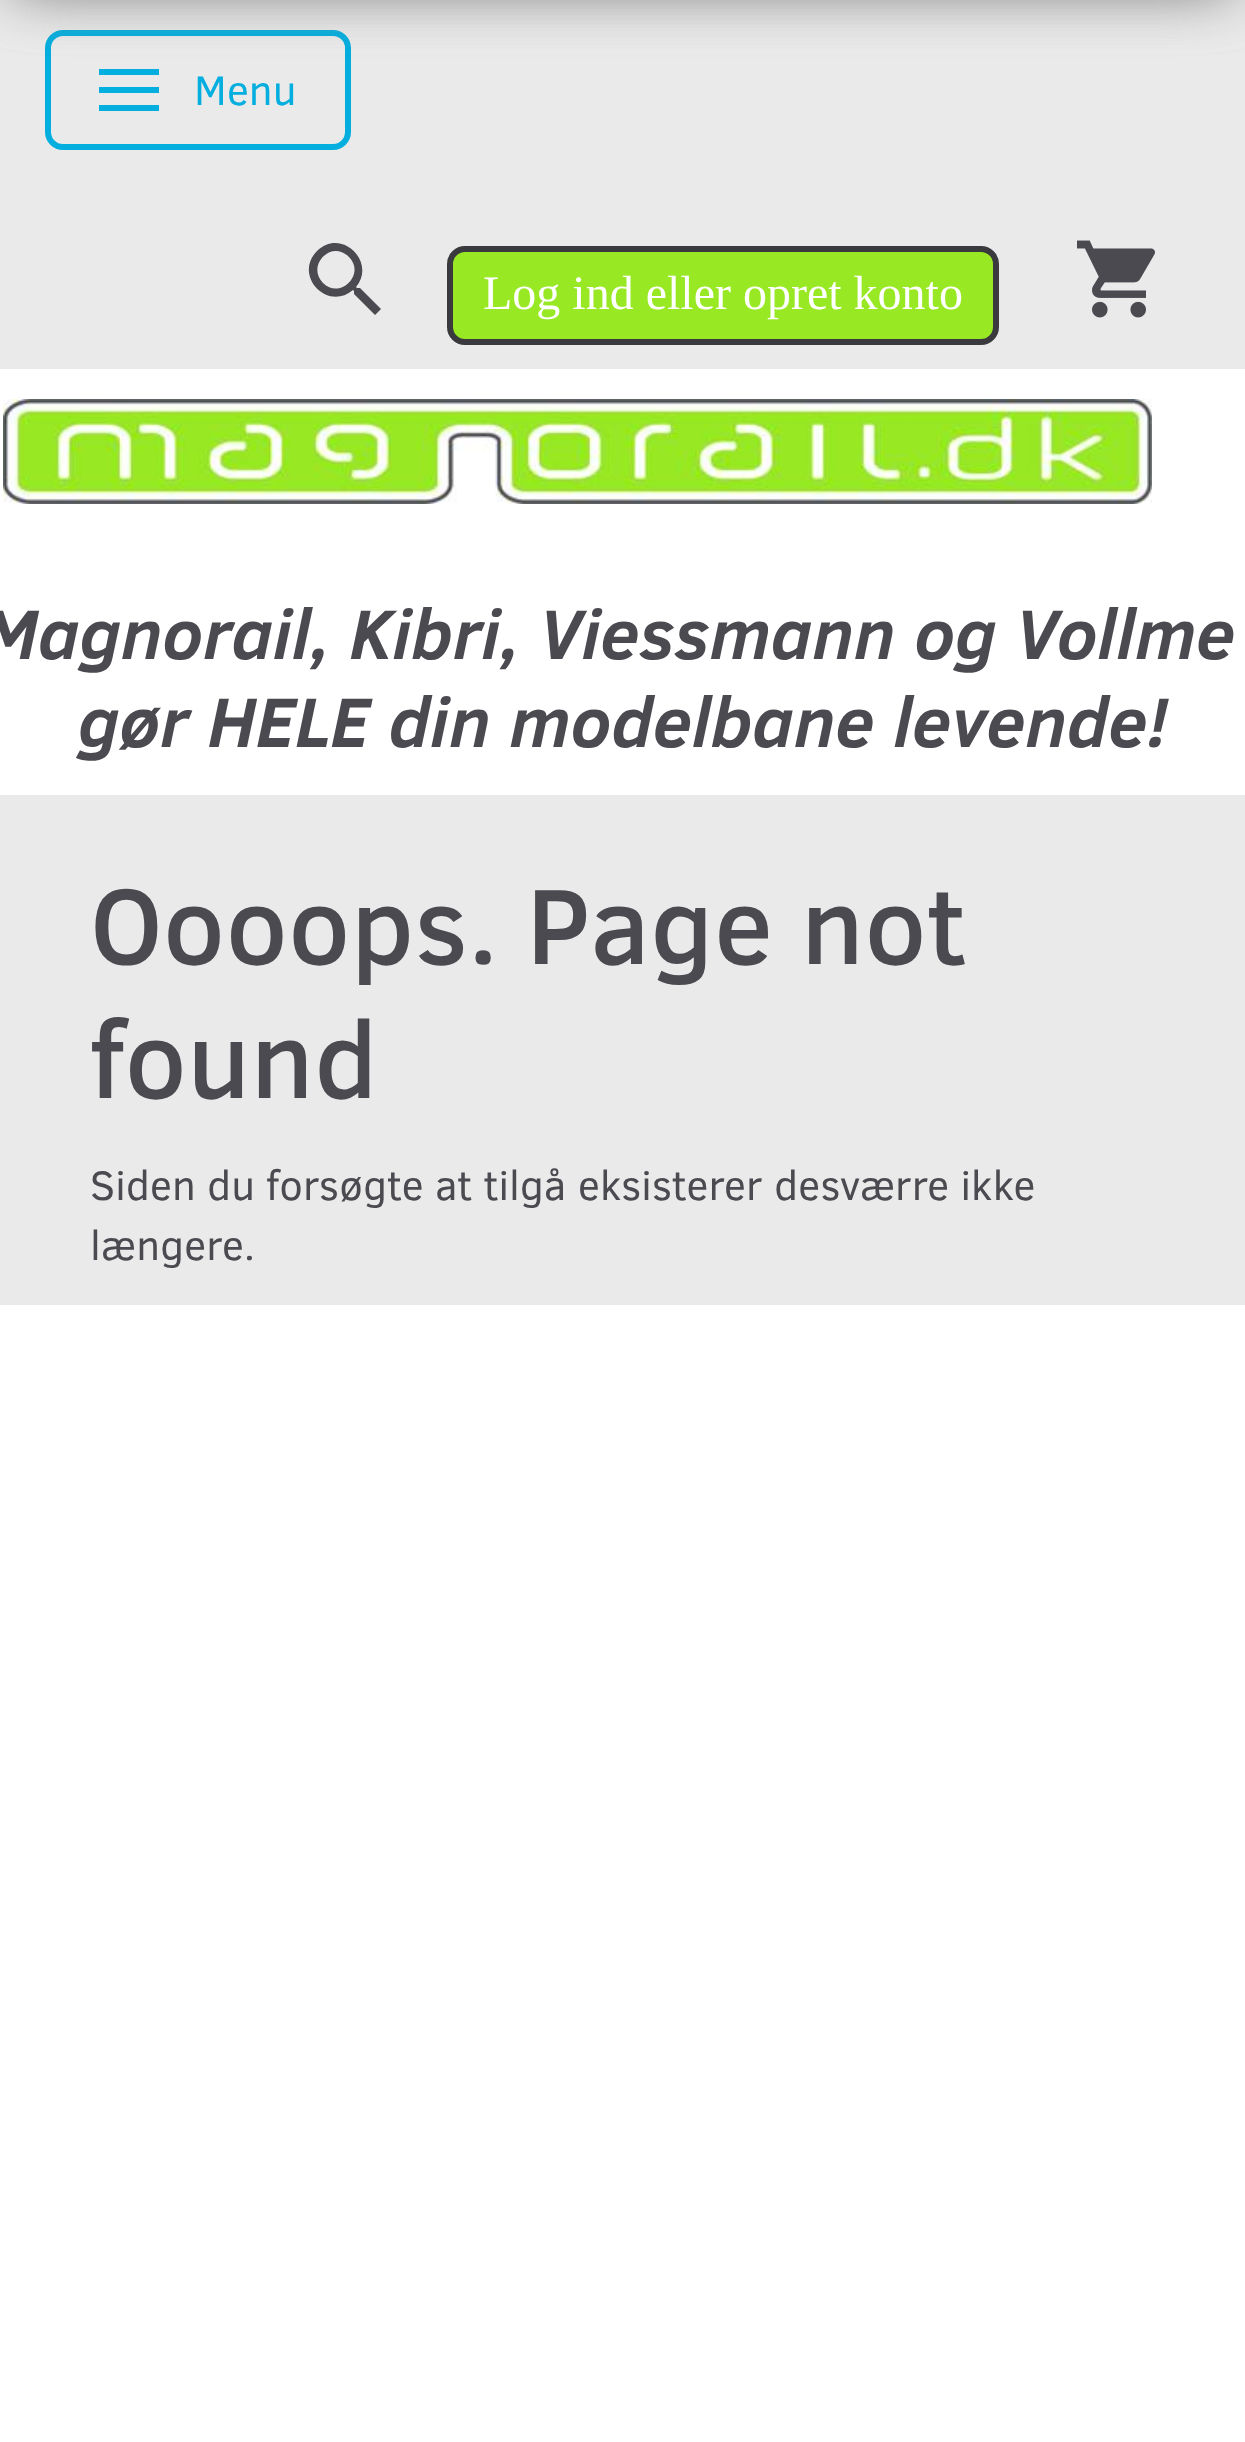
<svg xmlns="http://www.w3.org/2000/svg" xmlns:xlink="http://www.w3.org/1999/xlink" width="1245" height="2442" viewBox="0 0 1245 2442">
<style>
.cls-1{font:42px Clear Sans;fill:#04aede}
.cls-2{font:48px Liberation Serif;fill:#ffffff}
.cls-3{font:italic bold 71.4px Clear Sans;fill:#4b4a50}
.cls-4{font:500 109.25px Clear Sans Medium;fill:#4b4a50}
.cls-5{font:42px Clear Sans;fill:#4b4a50}
</style>
<rect width="100%" height="100%" fill="#eaeaea"/>
<rect fill="none" stroke="#04aede" stroke-width="6" x="48" y="33" width="300" height="114" rx="15"/>
<rect fill="#04aede" x="99" y="69" width="60" height="6"/>
<rect fill="#949494" filter="blur(30px)" x="15" y="-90" width="1215" height="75"/>
<rect fill="#949494" filter="blur(30px)" x="15" y="-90" width="1215" height="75"/>
<rect fill="#ffffff" x="0" y="369" width="1245" height="426"/>
<rect fill="#04aede" x="99" y="87" width="60" height="6"/>
<rect fill="#04aede" x="99" y="105" width="60" height="6"/>
<path fill="#4b4a50" d="M360 288L381 309L375 315L354 294V291L353 290C327 312 293 275 317 251C341 227 377 262 356 287L357 288ZM323 283C340 300 366 274 349 257C331 239 306 266 323 283Z"/>
<rect fill="#98e824" stroke="#3a393d" stroke-width="6" x="450" y="249" width="546" height="93" rx="15"/>
<image xlink:href="image0.png" x="1077" y="240" width="78" height="78"/>
<image xlink:href="image1.png" x="3" y="399" width="1149" height="105"/>
<rect fill="#ffffff" x="0" y="1305" width="1245" height="1137"/>
<text class="cls-1" x="194" y="105">Menu</text>
<text class="cls-2" x="483" y="309">Log ind eller opret konto</text>
<text class="cls-3" x="-19" y="659">Magnorail, Kibri, Viessmann og Vollme</text>
<text class="cls-3" x="78" y="747">gør HELE din modelbane levende!</text>
<text class="cls-4"><tspan x="90" y="964">Oooops. Page not</tspan><tspan x="90" y="1098">found</tspan></text>
<text class="cls-5"><tspan x="90" y="1200">Siden du forsøgte at tilgå eksisterer desværre ikke</tspan><tspan x="90" y="1260">længere.</tspan></text>
</svg>
